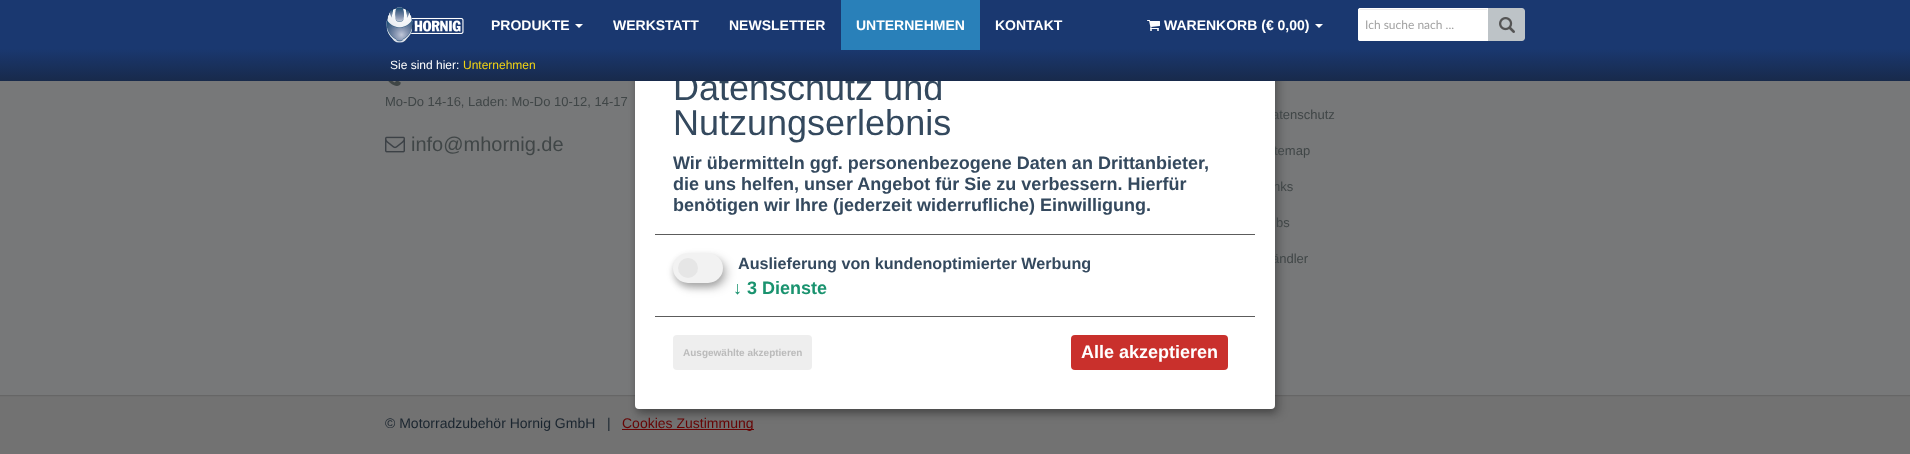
<svg xmlns="http://www.w3.org/2000/svg" xmlns:xlink="http://www.w3.org/1999/xlink" width="1910" height="454" viewBox="0 0 1910 454">
<style>
.cls-1{font:13px Liberation Sans;fill:#404647}
.cls-2{font:20px Liberation Sans;fill:#404647}
.cls-3{font:36px Liberation Sans;fill:#34495e}
.cls-4{font:12px Lato;fill:#a3a3a3}
.cls-5{font:bold 14px Liberation Sans;fill:#ffffff}
.cls-6{font:12px Liberation Sans;fill:#f2d513}
.cls-7{font:12px Liberation Sans;fill:#ffffff}
.cls-8{font:bold 18px Liberation Sans;fill:#1a936f}
.cls-9{font:bold 16.2px Liberation Sans;fill:#34495e}
.cls-10{font:bold 18px Liberation Sans;fill:#ffffff}
.cls-11{font:bold 10px Liberation Sans;fill:#bbbbbb}
.cls-12{font:bold 18px Liberation Sans;fill:#34495e}
.cls-13{font:14px Liberation Sans;fill:#1a252f}
.cls-14{font:14px Liberation Sans;fill:#670404}
</style>
<defs>
<linearGradient id="g1" gradientUnits="userSpaceOnUse" x1="955" y1="0" x2="955" y2="81"><stop offset="0.6" stop-color="#1a3870"/><stop offset="1" stop-color="#182a4b"/></linearGradient>
</defs>
<rect width="100%" height="100%" fill="#727272"/>
<rect fill="#777879" x="0" y="81" width="1910" height="314"/>
<rect fill="#666666" x="0" y="395" width="1910" height="1"/>
<rect fill="#6f6f6f" x="0" y="396" width="1910" height="1"/>
<rect fill="#670404" x="622" y="429" width="132" height="1"/>
<rect fill="#000000" fill-opacity="0.19" filter="blur(5px)" x="640" y="50" width="640" height="364" rx="4"/>
<rect fill="#000000" fill-opacity="0.2" filter="blur(3px)" x="635" y="49" width="640" height="364" rx="4"/>
<image xlink:href="image3.png" x="388" y="81" width="13" height="5"/>
<image xlink:href="image4.png" x="385" y="136" width="20" height="17"/>
<text class="cls-1" x="385" y="106">Mo-Do 14-16, Laden: Mo-Do 10-12, 14-17</text>
<text class="cls-2" x="411" y="151">info@mhornig.de</text>
<text class="cls-1" x="1272" y="119">atenschutz</text>
<text class="cls-1" x="1274" y="155">temap</text>
<text class="cls-1" x="1273" y="191">nks</text>
<text class="cls-1" x="1276" y="227">bs</text>
<text class="cls-1" x="1272" y="263">ändler</text>
<rect fill="#ffffff" x="635" y="45" width="640" height="364" rx="4"/>
<text class="cls-3" x="673" y="100">Datenschutz und</text>
<rect fill="url(#g1)" x="0" y="0" width="1910" height="81"/>
<path fill="#ffffff" d="M1360 8H1488V41H1360C1359 41 1358 40 1358 39V10C1358 9 1359 8 1360 8Z"/>
<path fill="#ececec" d="M1360 10H1487V9H1360L1359 11C1359 10 1359 10 1360 10Z"/>
<path fill="none" stroke="#ffffff" d="M1360 8.5H1487.5V40.5H1360C1359 40.5 1358.5 40 1358.5 39V10C1358.5 9 1359 8.5 1360 8.5Z"/>
<text class="cls-4" x="1365" y="29">Ich suche nach ...</text>
<path fill="#bdc3c7" d="M1488 8H1522C1523.5 8 1525 9.5 1525 11V38C1525 39.5 1523.5 41 1522 41H1488Z"/>
<image xlink:href="image2.png" x="1499" y="17" width="16" height="16"/>
<image xlink:href="image1.png" x="1147" y="20" width="13" height="11"/>
<text class="cls-5" x="995" y="30">KONTAKT</text>
<rect fill="#2980b9" x="841" y="0" width="139" height="50"/>
<text class="cls-5" x="856" y="30">UNTERNEHMEN</text>
<text class="cls-5" x="729" y="30">NEWSLETTER</text>
<text class="cls-5" x="613" y="30">WERKSTATT</text>
<path fill="#ffffff" d="M575 24H583L579 28Z"/>
<text class="cls-5" x="491" y="30">PRODUKTE</text>
<text class="cls-6" x="463" y="69">Unternehmen</text>
<text class="cls-7" x="390" y="69">Sie sind hier:</text>
<path fill="#ffffff" d="M1315 24H1323L1319 28Z"/>
<text class="cls-5" x="1164" y="30">WARENKORB (€ 0,00)</text>
<image xlink:href="image0.png" x="386" y="7" width="78" height="36"/>
<rect fill="#000000" fill-opacity="0.2" filter="blur(3px)" x="673" y="257" width="50" height="30" rx="15"/>
<rect fill="#000000" fill-opacity="0.19" filter="blur(5px)" x="678" y="258" width="50" height="30" rx="15"/>
<rect fill="#f2f2f2" x="673" y="253" width="50" height="30" rx="15"/>
<circle fill="#e6e6e6" cx="688" cy="268" r="10"/>
<text class="cls-8" x="733" y="294">↓ 3 Dienste</text>
<text class="cls-9" x="738" y="269">Auslieferung von kundenoptimierter Werbung</text>
<rect fill="#c9302c" x="1071" y="335" width="157" height="35" rx="4"/>
<text class="cls-10" x="1081" y="358">Alle akzeptieren</text>
<rect fill="#eeeeee" x="673" y="335" width="139" height="35" rx="4"/>
<text class="cls-11" x="683" y="356">Ausgewählte akzeptieren</text>
<text class="cls-12" x="673" y="211">benötigen wir Ihre (jederzeit widerrufliche) Einwilligung.</text>
<text class="cls-12" x="673" y="190">die uns helfen, unser Angebot für Sie zu verbessern. Hierfür</text>
<text class="cls-12" x="673" y="169">Wir übermitteln ggf. personenbezogene Daten an Drittanbieter,</text>
<text class="cls-3" x="673" y="135">Nutzungserlebnis</text>
<rect fill="#5c5c5c" x="655" y="316" width="600" height="1"/>
<rect fill="#5c5c5c" x="655" y="234" width="600" height="1"/>
<text class="cls-13" xml:space="preserve" x="385" y="428">© Motorradzubehör Hornig GmbH   |</text>
<text class="cls-14" x="622" y="428">Cookies Zustimmung</text>
</svg>
